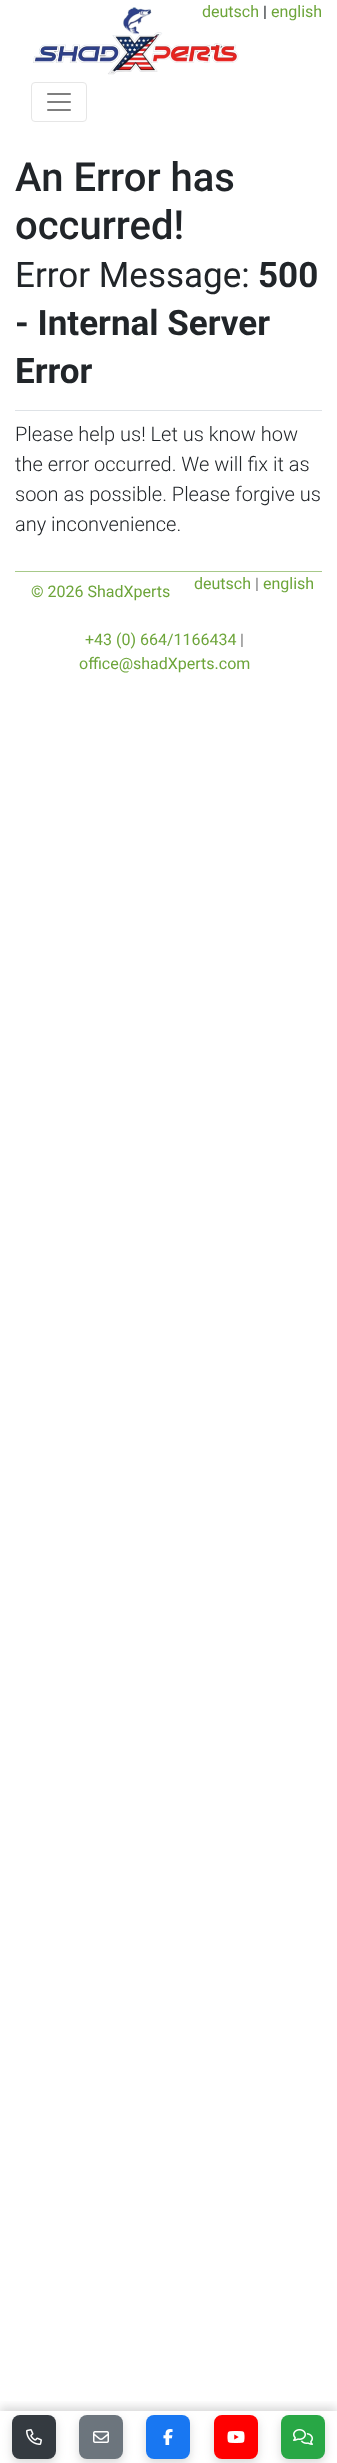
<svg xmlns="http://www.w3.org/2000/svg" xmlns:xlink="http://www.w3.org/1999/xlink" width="337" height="2463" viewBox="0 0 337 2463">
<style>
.cls-1{font:16px Roboto;fill:#6da53a}
.cls-2{font:16px Roboto;fill:#212529}
.cls-3{font:500 40px Roboto;fill:#212529}
.cls-4{font:35px Roboto;fill:#212529}
.cls-5{font:bold 35px Roboto;fill:#212529}
.cls-6{font:300 20px Roboto;fill:#212529}
.cls-7{font:16px Roboto;fill:#777777}
</style>
<defs>
<clipPath id="clip1"><rect x="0" y="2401" width="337" height="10"/></clipPath>
</defs>
<rect width="100%" height="100%" fill="#ffffff"/>
<rect fill="none" stroke="#e6e6e6" x="31.5" y="82.5" width="55" height="39" rx="3.5"/>
<image xlink:href="image1.png" x="47" y="93" width="24" height="18"/>
<rect fill="#dee2e6" x="15" y="410" width="307" height="1"/>
<rect fill="#a7c989" x="15" y="571" width="307" height="1"/>
<g clip-path="url(#clip1)">
<rect fill="#000000" fill-opacity="0.15" filter="blur(5px)" x="0" y="2407" width="337" height="52"/>
</g>
<rect fill="#000000" fill-opacity="0.15" filter="blur(5px)" x="12" y="2419" width="44" height="44" rx="8"/>
<rect fill="#343a40" x="12" y="2415" width="44" height="44" rx="8"/>
<image xlink:href="image2.png" x="26" y="2429" width="16" height="16"/>
<rect fill="#000000" fill-opacity="0.15" filter="blur(5px)" x="79" y="2419" width="44" height="44" rx="8"/>
<rect fill="#6c757d" x="79" y="2415" width="44" height="44" rx="8"/>
<image xlink:href="image3.png" x="93" y="2431" width="16" height="12"/>
<rect fill="#000000" fill-opacity="0.15" filter="blur(5px)" x="146" y="2419" width="44" height="44" rx="8"/>
<rect fill="#1877f2" x="146" y="2415" width="44" height="44" rx="8"/>
<image xlink:href="image4.png" x="163" y="2429" width="10" height="16"/>
<rect fill="#000000" fill-opacity="0.15" filter="blur(5px)" x="214" y="2419" width="44" height="44" rx="8"/>
<rect fill="#ff0000" x="214" y="2415" width="44" height="44" rx="8"/>
<image xlink:href="image5.png" x="227" y="2431" width="18" height="12"/>
<rect fill="#000000" fill-opacity="0.15" filter="blur(5px)" x="281" y="2419" width="44" height="44" rx="8"/>
<rect fill="#28a745" x="281" y="2415" width="44" height="44" rx="8"/>
<image xlink:href="image6.png" x="293" y="2429" width="20" height="16"/>
<text class="cls-1" x="202" y="17">deutsch</text>
<image xlink:href="image0.png" x="33" y="7" width="206" height="68"/>
<text class="cls-2" x="263" y="17">|</text>
<text class="cls-1" x="271" y="17">english</text>
<text class="cls-3"><tspan x="15" y="191">An Error has</tspan><tspan x="15" y="239">occurred!</tspan></text>
<text class="cls-4" x="15" y="287">Error Message:</text>
<text class="cls-5" x="258" y="287">500</text>
<text class="cls-5"><tspan x="15" y="335">- Internal Server</tspan><tspan x="15" y="383">Error</tspan></text>
<text class="cls-6"><tspan x="15" y="441">Please help us! Let us know how</tspan><tspan x="15" y="471">the error occurred. We will fix it as</tspan><tspan x="15" y="501">soon as possible. Please forgive us</tspan><tspan x="15" y="531">any inconvenience.</tspan></text>
<text class="cls-1" x="31" y="597">© 2026 ShadXperts</text>
<text class="cls-1" x="194" y="589">deutsch</text>
<text class="cls-7" x="255" y="589">|</text>
<text class="cls-1" x="263" y="589">english</text>
<text class="cls-1" x="85" y="645">+43 (0) 664/1166434</text>
<text class="cls-7" x="240" y="645">|</text>
<text class="cls-1" x="79" y="669">office@shadXperts.com</text>
</svg>
